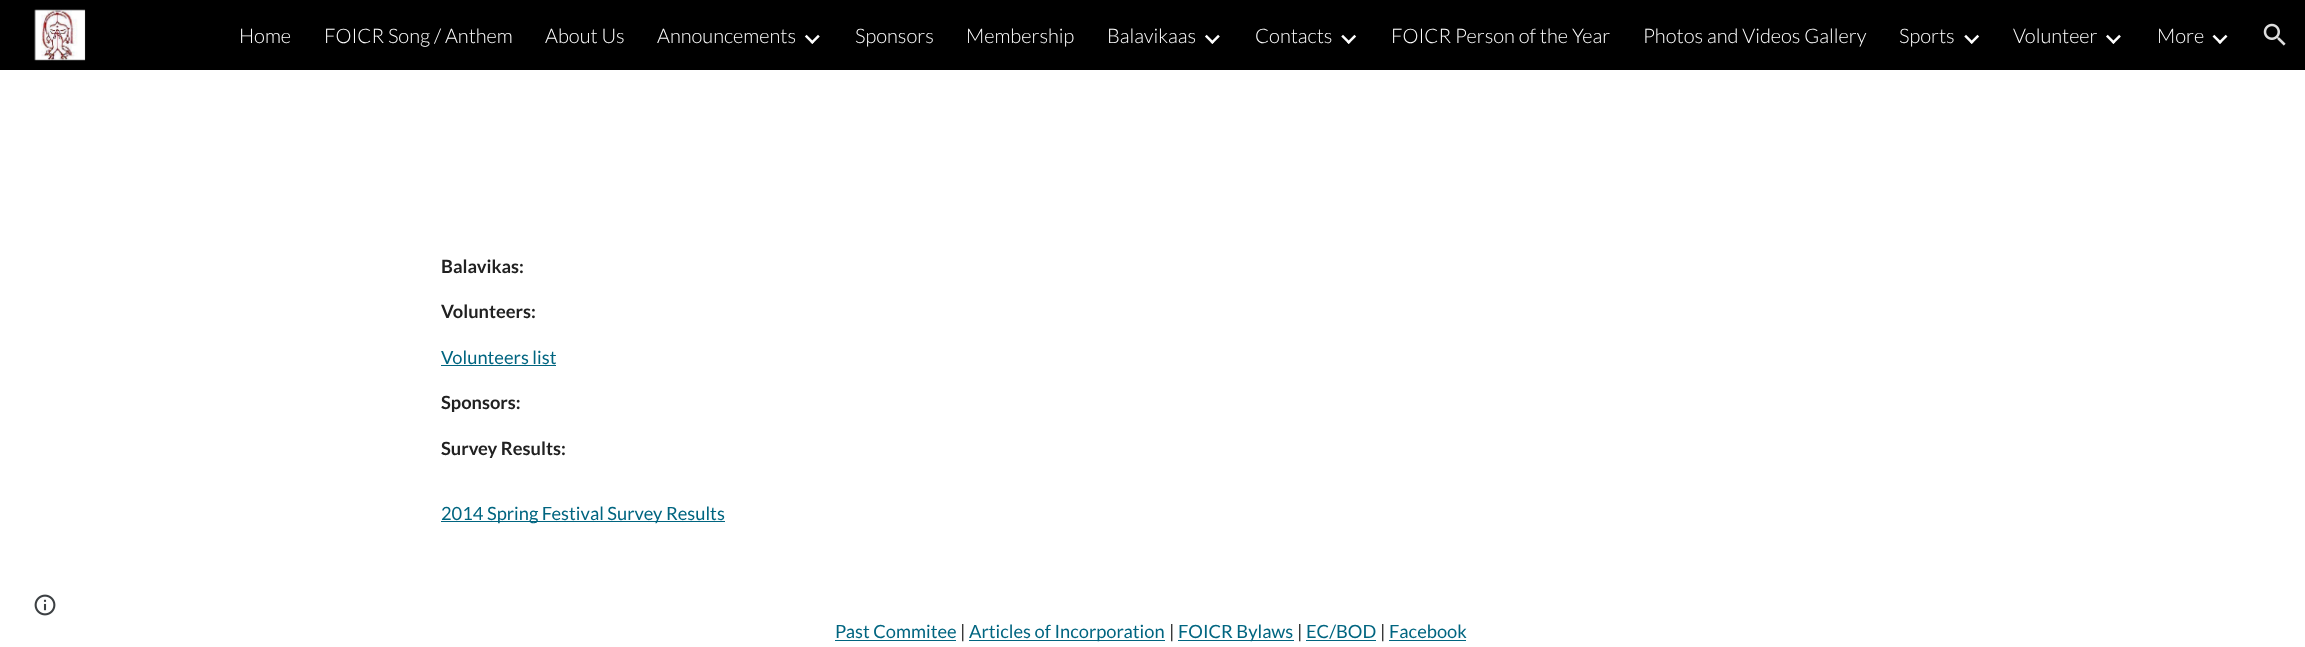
<svg xmlns="http://www.w3.org/2000/svg" xmlns:xlink="http://www.w3.org/1999/xlink" width="2305" height="647" viewBox="0 0 2305 647">
<style>
.cls-1{font:300 20px Lato;fill:#ffffff}
.cls-2{font:bold 18.3px Lato;fill:#212121}
.cls-3{font:18.3px Lato;fill:#006580}
.cls-4{font:18.3px Lato;fill:#212121}
</style>
<rect width="100%" height="100%" fill="#ffffff"/>
<rect fill="#000000" x="0" y="0" width="2305" height="70"/>
<image xlink:href="image0.png" x="34" y="9" width="52" height="52"/>
<image xlink:href="image1.png" x="804" y="34" width="16" height="10"/>
<image xlink:href="image2.png" x="1205" y="34" width="15" height="10"/>
<image xlink:href="image3.png" x="1341" y="34" width="16" height="10"/>
<image xlink:href="image4.png" x="1964" y="34" width="16" height="10"/>
<image xlink:href="image5.png" x="2106" y="34" width="15" height="10"/>
<image xlink:href="image6.png" x="2212" y="34" width="16" height="10"/>
<image xlink:href="image7.png" x="2263" y="23" width="23" height="23"/>
<rect fill="#006580" x="441" y="365" width="115" height="1"/>
<rect fill="#006580" x="441" y="521" width="284" height="1"/>
<image xlink:href="image8.png" x="34" y="594" width="22" height="22"/>
<rect fill="#006580" x="835" y="640" width="121" height="1"/>
<rect fill="#006580" x="969" y="640" width="196" height="1"/>
<rect fill="#006580" x="1178" y="640" width="116" height="1"/>
<rect fill="#006580" x="1306" y="640" width="70" height="1"/>
<rect fill="#006580" x="1389" y="640" width="77" height="1"/>
<text class="cls-1" x="239" y="43">Home</text>
<text class="cls-1" x="324" y="43">FOICR Song / Anthem</text>
<text class="cls-1" x="545" y="43">About Us</text>
<text class="cls-1" x="657" y="43">Announcements</text>
<text class="cls-1" x="855" y="43">Sponsors</text>
<text class="cls-1" x="966" y="43">Membership</text>
<text class="cls-1" x="1107" y="43">Balavikaas</text>
<text class="cls-1" x="1255" y="43">Contacts</text>
<text class="cls-1" x="1391" y="43">FOICR Person of the Year</text>
<text class="cls-1" x="1643" y="43">Photos and Videos Gallery</text>
<text class="cls-1" x="1899" y="43">Sports</text>
<text class="cls-1" x="2013" y="43">Volunteer</text>
<text class="cls-1" x="2157" y="43">More</text>
<text class="cls-2" x="441" y="273">Balavikas:</text>
<text class="cls-2" x="441" y="318">Volunteers:</text>
<text class="cls-3" x="441" y="364">Volunteers list</text>
<text class="cls-2" x="441" y="409">Sponsors:</text>
<text class="cls-2" x="441" y="455">Survey Results:</text>
<text class="cls-3" x="441" y="520">2014 Spring Festival Survey Results</text>
<text class="cls-3" x="835" y="638">Past Commitee</text>
<text class="cls-4" x="960" y="638">|</text>
<text class="cls-3" x="969" y="638">Articles of Incorporation</text>
<text class="cls-4" x="1169" y="638">|</text>
<text class="cls-3" x="1178" y="638">FOICR Bylaws</text>
<text class="cls-4" x="1297" y="638">|</text>
<text class="cls-3" x="1306" y="638">EC/BOD</text>
<text class="cls-4" x="1380" y="638">|</text>
<text class="cls-3" x="1389" y="638">Facebook</text>
</svg>
